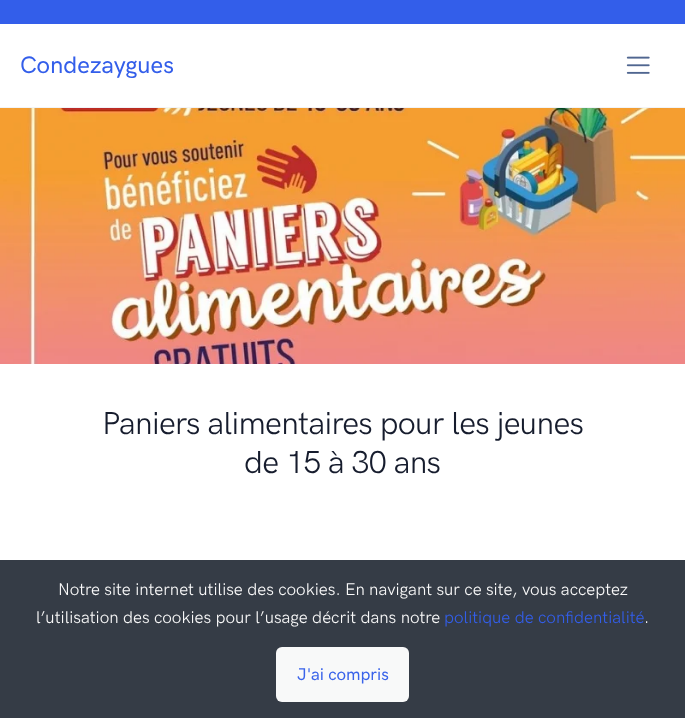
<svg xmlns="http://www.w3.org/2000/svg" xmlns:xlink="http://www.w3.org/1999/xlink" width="685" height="718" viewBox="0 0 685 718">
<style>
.cls-1{font:500 24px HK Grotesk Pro;fill:#335eea}
.cls-2{font:32px HK Grotesk Pro;letter-spacing:-0.65px;fill:#161c2d}
.cls-3{font:17px HK Grotesk Pro;fill:#f9f9f9}
.cls-4{font:17px HK Grotesk Pro;fill:#335eea}
.cls-5{font:17px HK Grotesk Pro;fill:#ffffff}
.cls-6{font:500 17px HK Grotesk Pro;fill:#3963ea}
</style>
<rect width="100%" height="100%" fill="#ffffff"/>
<rect fill="#353c46" x="0" y="560" width="685" height="158"/>
<rect fill="#335eea" x="0" y="0" width="685" height="24"/>
<rect fill="#f1f4f8" x="0" y="107" width="685" height="1"/>
<image xlink:href="image0.png" x="626" y="56" width="24" height="18"/>
<image xlink:href="image1.png" x="0" y="108" width="685" height="256"/>
<rect fill="#ffffff" fill-opacity="0.97" x="276" y="647" width="133" height="55" rx="6"/>
<text class="cls-1" x="20" y="73">Condezaygues</text>
<text class="cls-2" x="102" y="434">Paniers alimentaires pour les jeunes</text>
<text class="cls-2" x="244" y="473">de 15 à 30 ans</text>
<text class="cls-3" x="58" y="595">Notre site internet utilise des cookies. En navigant sur ce site, vous acceptez</text>
<text class="cls-3" x="36" y="623">l’utilisation des cookies pour l’usage décrit dans notre</text>
<text class="cls-4" x="444" y="623">politique de confidentialité</text>
<text class="cls-5" x="644" y="623">.</text>
<text class="cls-6" x="297" y="680">J'ai compris</text>
</svg>
